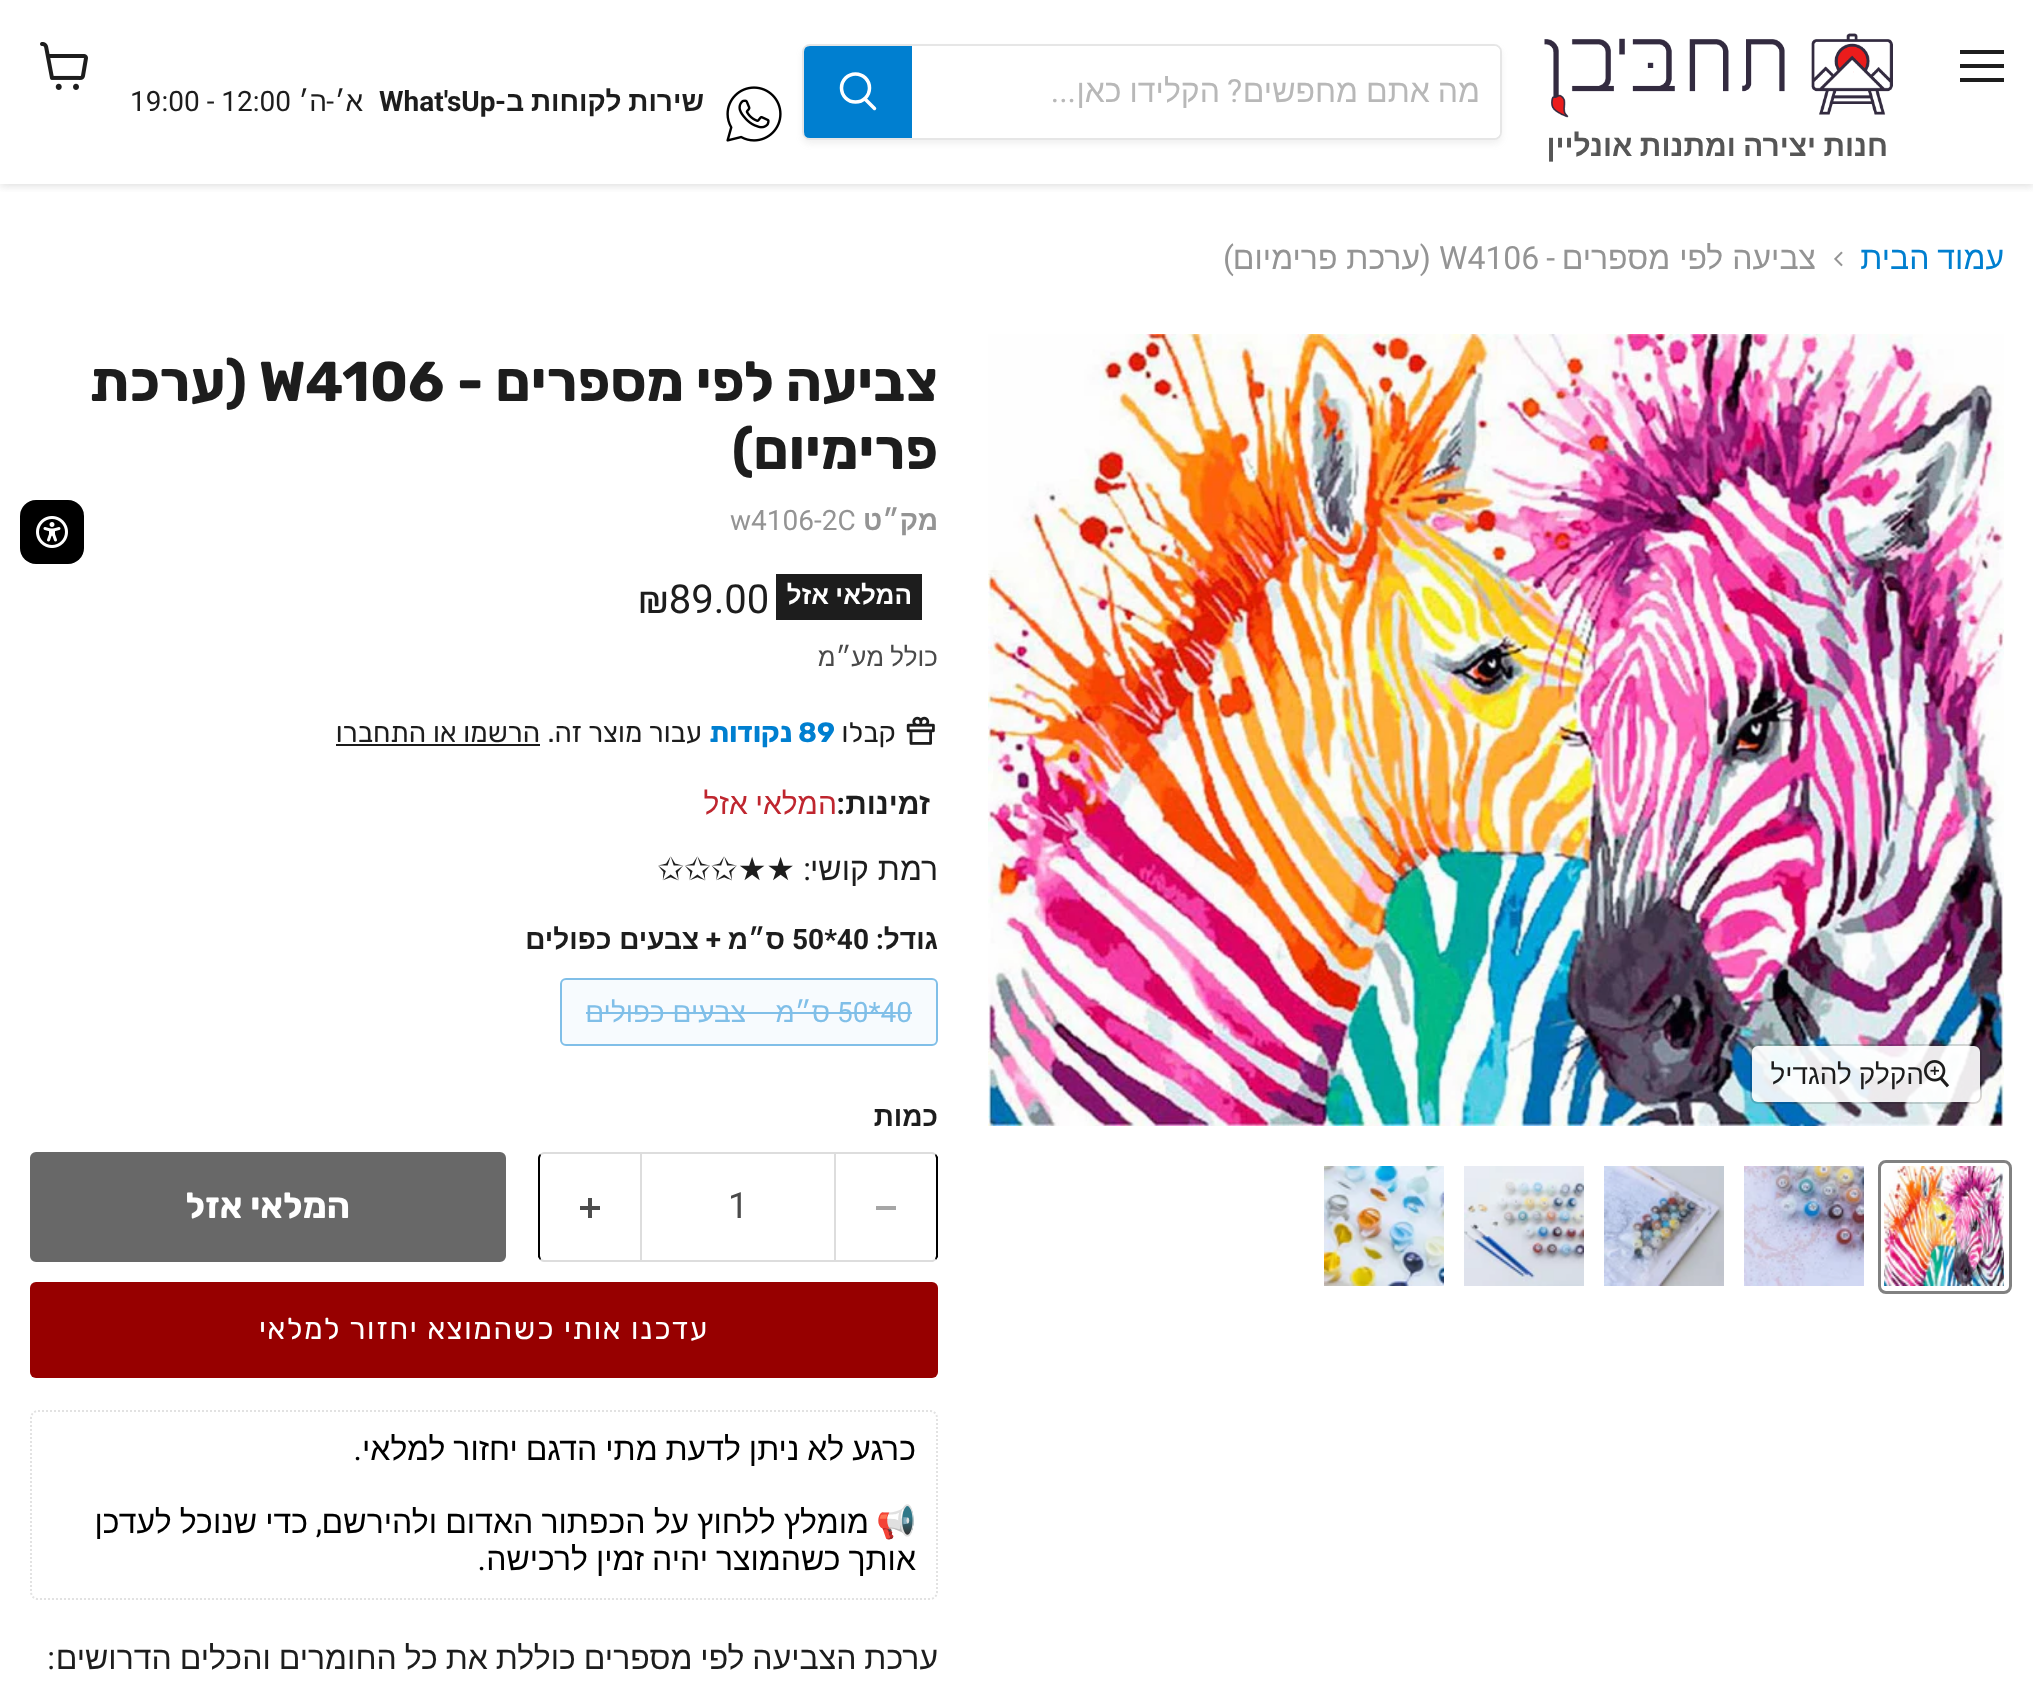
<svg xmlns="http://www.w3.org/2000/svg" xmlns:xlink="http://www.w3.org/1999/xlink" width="2033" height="1685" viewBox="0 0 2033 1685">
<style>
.cls-1{font:32px Liberation Sans;direction:rtl;fill:#b8b8b8}
.cls-2{font:32px Roboto;direction:rtl;fill:#b8b8b8}
.cls-3{font:bold 28px Liberation Sans;direction:rtl;fill:#1d1d1d}
.cls-4{font:bold 28px Roboto;direction:rtl;fill:#1d1d1d}
.cls-5{font:bold 28px Roboto;fill:#1d1d1d}
.cls-6{font:28px Liberation Sans;direction:rtl;fill:#1d1d1d}
.cls-7{font:28px Roboto;direction:rtl;fill:#1d1d1d}
.cls-8{font:28px Roboto;fill:#1d1d1d}
.cls-9{font:bold 30px Liberation Sans;direction:rtl;fill:#565656}
.cls-10{font:32px Liberation Sans;direction:rtl;fill:#007fd0}
.cls-11{font:32px Liberation Sans;direction:rtl;fill:#949494}
.cls-12{font:32px Roboto;direction:rtl;fill:#949494}
.cls-13{font:32px Roboto;fill:#949494}
.cls-14{font:300 56px Rubik;direction:rtl;fill:#1d1d1d}
.cls-15{font:300 56px Rubik;fill:#1d1d1d}
.cls-16{font:bold 28px Liberation Sans;direction:rtl;fill:#949494}
.cls-17{font:28px Roboto;fill:#949494}
.cls-18{font:bold 26px Liberation Sans;direction:rtl;fill:#ffffff}
.cls-19{font:40px Roboto;fill:#1d1d1d}
.cls-20{font:26px Liberation Sans;direction:rtl;fill:#4a4a4a}
.cls-21{font:300 28px 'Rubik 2';direction:rtl;fill:#1d1d1d}
.cls-22{font:300 28px Rubik;fill:#007fd0}
.cls-23{font:300 28px Rubik;direction:rtl;fill:#007fd0}
.cls-24{font:bold 30px Liberation Sans;direction:rtl;fill:#1d1d1d}
.cls-25{font:bold 30px Roboto;direction:rtl;fill:#1d1d1d}
.cls-26{font:30px Liberation Sans;direction:rtl;fill:#bf262f}
.cls-27{font:32px Liberation Sans;direction:rtl;fill:#1d1d1d}
.cls-28{font:32px Roboto;direction:rtl;fill:#1d1d1d}
.cls-29{font:32px DejaVu Sans;direction:rtl;fill:#1d1d1d}
.cls-30{font:28px Roboto;fill:#80bfe8}
.cls-31{font:28px Liberation Sans;direction:rtl;fill:#80bfe8}
.cls-32{font:36px Roboto;fill:#4a4a4a}
.cls-33{font:300 36px Rubik;direction:rtl;fill:#ffffff}
.cls-34{font:300 30px 'Rubik 2';letter-spacing:1.6px;direction:rtl;fill:#ffffff}
.cls-35{font:32px Liberation Sans;direction:rtl;fill:#000000}
.cls-36{font:32px Roboto;direction:rtl;fill:#000000}
.cls-37{font:32px Noto Color Emoji;direction:rtl;fill:#000000}
</style>
<defs>
<clipPath id="clip1"><rect x="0" y="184" width="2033" height="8"/></clipPath>
<clipPath id="clip2"><path d="M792 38H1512V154H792ZM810 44H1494C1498.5 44 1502 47.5 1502 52V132C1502 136.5 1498.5 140 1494 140H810C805.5 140 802 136.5 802 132V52C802 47.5 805.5 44 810 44Z" clip-rule="evenodd"/></clipPath>
</defs>
<rect width="100%" height="100%" fill="#ffffff"/>
<g clip-path="url(#clip1)">
<rect fill="#808080" fill-opacity="0.25" filter="blur(4px)" x="0" y="2" width="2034" height="184"/>
</g>
<rect fill="#1d1d1d" x="1960" y="50" width="44" height="4"/>
<rect fill="#1d1d1d" x="1960" y="64" width="44" height="4"/>
<rect fill="#1d1d1d" x="1960" y="78" width="44" height="4"/>
<image xlink:href="image0.png" x="40" y="42" width="48" height="48"/>
<g clip-path="url(#clip2)">
<rect fill="#808080" fill-opacity="0.11" filter="blur(3px)" x="802" y="48" width="700" height="96" rx="8"/>
</g>
<rect fill="none" stroke="#808080" stroke-opacity="0.2" stroke-width="2" x="803" y="45" width="698" height="94" rx="7"/>
<path fill="#ffffff" d="M912 46H1494C1497.5 46 1500 48.5 1500 52V132C1500 135.5 1497.5 138 1494 138H912Z"/>
<path fill="#007fd0" stroke="#007fd0" stroke-width="2" d="M810 47H911V137H810C807 137 805 135 805 132V52C805 49 807 47 810 47Z"/>
<path fill="none" stroke="#ffffff" stroke-width="3.5" stroke-linecap="round" d="M874.5 108.5L865 99"/>
<circle fill="none" stroke="#ffffff" stroke-width="3.5" cx="855.5" cy="88" r="14"/>
<image xlink:href="image1.png" x="726" y="86" width="56" height="56"/>
<image xlink:href="image2.png" x="1544" y="33" width="349" height="85"/>
<image xlink:href="image3.png" x="1834" y="251" width="9" height="16"/>
<image xlink:href="image4.png" x="988" y="334" width="1016" height="792"/>
<rect fill="none" stroke="#000000" stroke-opacity="0.15" stroke-width="2" x="1751" y="1045" width="230" height="58" rx="7"/>
<rect fill="#ffffff" fill-opacity="0.9" x="1752" y="1046" width="228" height="56" rx="6"/>
<image xlink:href="image5.png" x="1924" y="1060" width="26" height="28"/>
<rect fill="none" stroke="#818181" stroke-width="3" x="1879.5" y="1161.5" width="131" height="131" rx="6.5"/>
<image xlink:href="image6.png" x="1884" y="1166" width="120" height="120"/>
<image xlink:href="image7.png" x="1744" y="1166" width="120" height="120"/>
<image xlink:href="image8.png" x="1604" y="1166" width="120" height="120"/>
<image xlink:href="image9.png" x="1464" y="1166" width="120" height="120"/>
<image xlink:href="image10.png" x="1324" y="1166" width="120" height="120"/>
<rect fill="#1d1d1d" x="776" y="574" width="146" height="46"/>
<image xlink:href="image11.png" x="906" y="716" width="29" height="29"/>
<rect fill="#1b1b1b" x="336" y="744" width="204" height="2"/>
<rect fill="#f7fbfe" stroke="#80bfe8" stroke-width="2" x="561" y="979" width="376" height="66" rx="5"/>
<rect fill="#80bfe8" x="586" y="1012" width="252" height="2"/>
<rect fill="#80bfe8" x="838" y="1012" width="74" height="2"/>
<path fill="#dddddd" d="M836 1152V1154H932L935 1155L936 1154C935 1153 934 1152 932 1152Z"/>
<path fill="#000000" d="M935 1259L936 1256V1158L935 1155L936 1154L938 1157V1257L936 1260Z"/>
<path fill="#dddddd" d="M836 1260V1262H933L936 1260L935 1259L932 1260Z"/>
<rect fill="#a6a6a6" x="876" y="1206" width="20" height="4"/>
<rect fill="none" stroke="#dddddd" stroke-width="2" x="641" y="1153" width="194" height="108"/>
<path fill="#dddddd" d="M544 1152C542 1152 541 1153 540 1154L541 1155L544 1154H640V1152Z"/>
<path fill="#dddddd" d="M640 1262V1260H544L541 1259L540 1260C541 1261 542 1262 544 1262Z"/>
<path fill="#000000" d="M538 1158V1257L540 1260L541 1259L540 1256V1158L541 1155L540 1154C539 1155 538 1156 538 1158Z"/>
<image xlink:href="image12.png" x="580" y="1198" width="20" height="20"/>
<rect fill="#686868" stroke="#686868" stroke-width="2" x="31" y="1153" width="474" height="108" rx="5"/>
<rect fill="#970000" x="30" y="1282" width="908" height="96" rx="6"/>
<path fill="none" stroke="#e2e2e2" stroke-width="2" stroke-dasharray="2 2" d="M38 1411H930C934 1411 937 1414 937 1418V1592C937 1596 934 1599 930 1599H38C34 1599 31 1596 31 1592V1418C31 1414 34 1411 38 1411Z"/>
<rect fill="#000000" x="20" y="500" width="64" height="64" rx="16"/>
<image xlink:href="image13.png" x="36" y="516" width="32" height="32"/>
<text class="cls-1" x="1480" y="102" word-spacing="-1">מה אתם מחפשים</text>
<text class="cls-2" x="1242" y="102">?</text>
<text class="cls-1" x="1220" y="102" word-spacing="-1">הקלידו כאן</text>
<text class="cls-2" x="1076" y="102">...</text>
<text class="cls-3" x="704" y="111" word-spacing="-1">שירות לקוחות ב</text>
<text class="cls-4" x="506" y="111">-</text>
<text class="cls-5" x="379" y="111">What'sUp</text>
<text class="cls-6" x="363" y="111">א׳</text>
<text class="cls-7" x="334" y="111">-</text>
<text class="cls-6" x="327" y="111">ה׳</text>
<text class="cls-8" x="130" y="111">19:00 - 12:00</text>
<text class="cls-9" x="1888" y="156" word-spacing="-1">חנות יצירה ומתנות אונליין</text>
<text class="cls-10" x="2004" y="269" word-spacing="-1">עמוד הבית</text>
<text class="cls-11" x="1816" y="269">צביעה לפי מספרים</text>
<text class="cls-12" x="1555" y="269">-</text>
<text class="cls-13" x="1439" y="269">W4106</text>
<text class="cls-12" x="1431" y="269">(</text>
<text class="cls-11" x="1420" y="269">ערכת פרימיום</text>
<text class="cls-12" x="1234" y="269">)</text>
<text class="cls-6" x="1924" y="1084" word-spacing="-1">הקלק להגדיל</text>
<text class="cls-14" x="938" y="401">צביעה לפי מספרים -</text>
<text class="cls-15" x="259" y="401">W4106</text>
<text class="cls-14" x="247" y="401">(ערכת</text>
<text class="cls-14" x="938" y="469">פרימיום)</text>
<text class="cls-16" x="938" y="530">מק״ט</text>
<text class="cls-17" x="730" y="530">w4106-2C</text>
<text class="cls-18" x="912" y="604" word-spacing="-0.75">המלאי אזל</text>
<text class="cls-19" x="638" y="613">₪89.00</text>
<text class="cls-20" x="938" y="666" word-spacing="-1">כולל מע״מ</text>
<text class="cls-21" x="896" y="742">קבלו</text>
<text class="cls-22" x="798" y="742">89</text>
<text class="cls-23" x="792" y="742">נקודות</text>
<text class="cls-21" x="702" y="742">עבור מוצר זה.</text>
<text class="cls-21" x="540" y="742">הרשמו או התחברו</text>
<text class="cls-24" x="930" y="814">זמינות</text>
<text class="cls-25" x="845" y="814">:</text>
<text class="cls-26" x="837" y="814" word-spacing="-1">המלאי אזל</text>
<text class="cls-27" x="938" y="880">רמת קושי</text>
<text class="cls-28" x="811" y="880">:</text>
<text class="cls-29" x="795" y="880">★★✩✩✩</text>
<text class="cls-3" x="938" y="949">גודל</text>
<text class="cls-4" x="884" y="949">:</text>
<text class="cls-5" x="792" y="949">50*40</text>
<text class="cls-3" x="785" y="949">ס״מ</text>
<text class="cls-4" x="721" y="949">+</text>
<text class="cls-3" x="699" y="949">צבעים כפולים</text>
<text class="cls-30" x="837" y="1022">50*40</text>
<text class="cls-31" x="830" y="1022">ס״מ</text>
<text class="cls-31" x="746" y="1022">צבעים כפולים</text>
<text class="cls-3" x="938" y="1126">כמות</text>
<text class="cls-32" x="728" y="1218">1</text>
<text class="cls-33" x="350" y="1218">המלאי אזל</text>
<text class="cls-34" x="709" y="1339">עדכנו אותי כשהמוצא יחזור למלאי</text>
<text class="cls-35" x="916" y="1460" word-spacing="-1">כרגע לא ניתן לדעת מתי הדגם יחזור למלאי</text>
<text class="cls-36" x="362" y="1460">.</text>
<text class="cls-37" x="916" y="1533">📢</text>
<text class="cls-35" x="869" y="1533" word-spacing="-0.75">מומלץ ללחוץ על הכפתור האדום ולהירשם</text>
<text class="cls-36" x="322" y="1533">,</text>
<text class="cls-35" x="308" y="1533" word-spacing="-0.75">כדי שנוכל לעדכן</text>
<text class="cls-35" x="916" y="1570" word-spacing="-1">אותך כשהמוצר יהיה זמין לרכישה</text>
<text class="cls-36" x="486" y="1570">.</text>
<text class="cls-27" x="938" y="1669" word-spacing="-1">ערכת הצביעה לפי מספרים כוללת את כל החומרים והכלים הדרושים</text>
<text class="cls-28" x="55" y="1669">:</text>
</svg>
